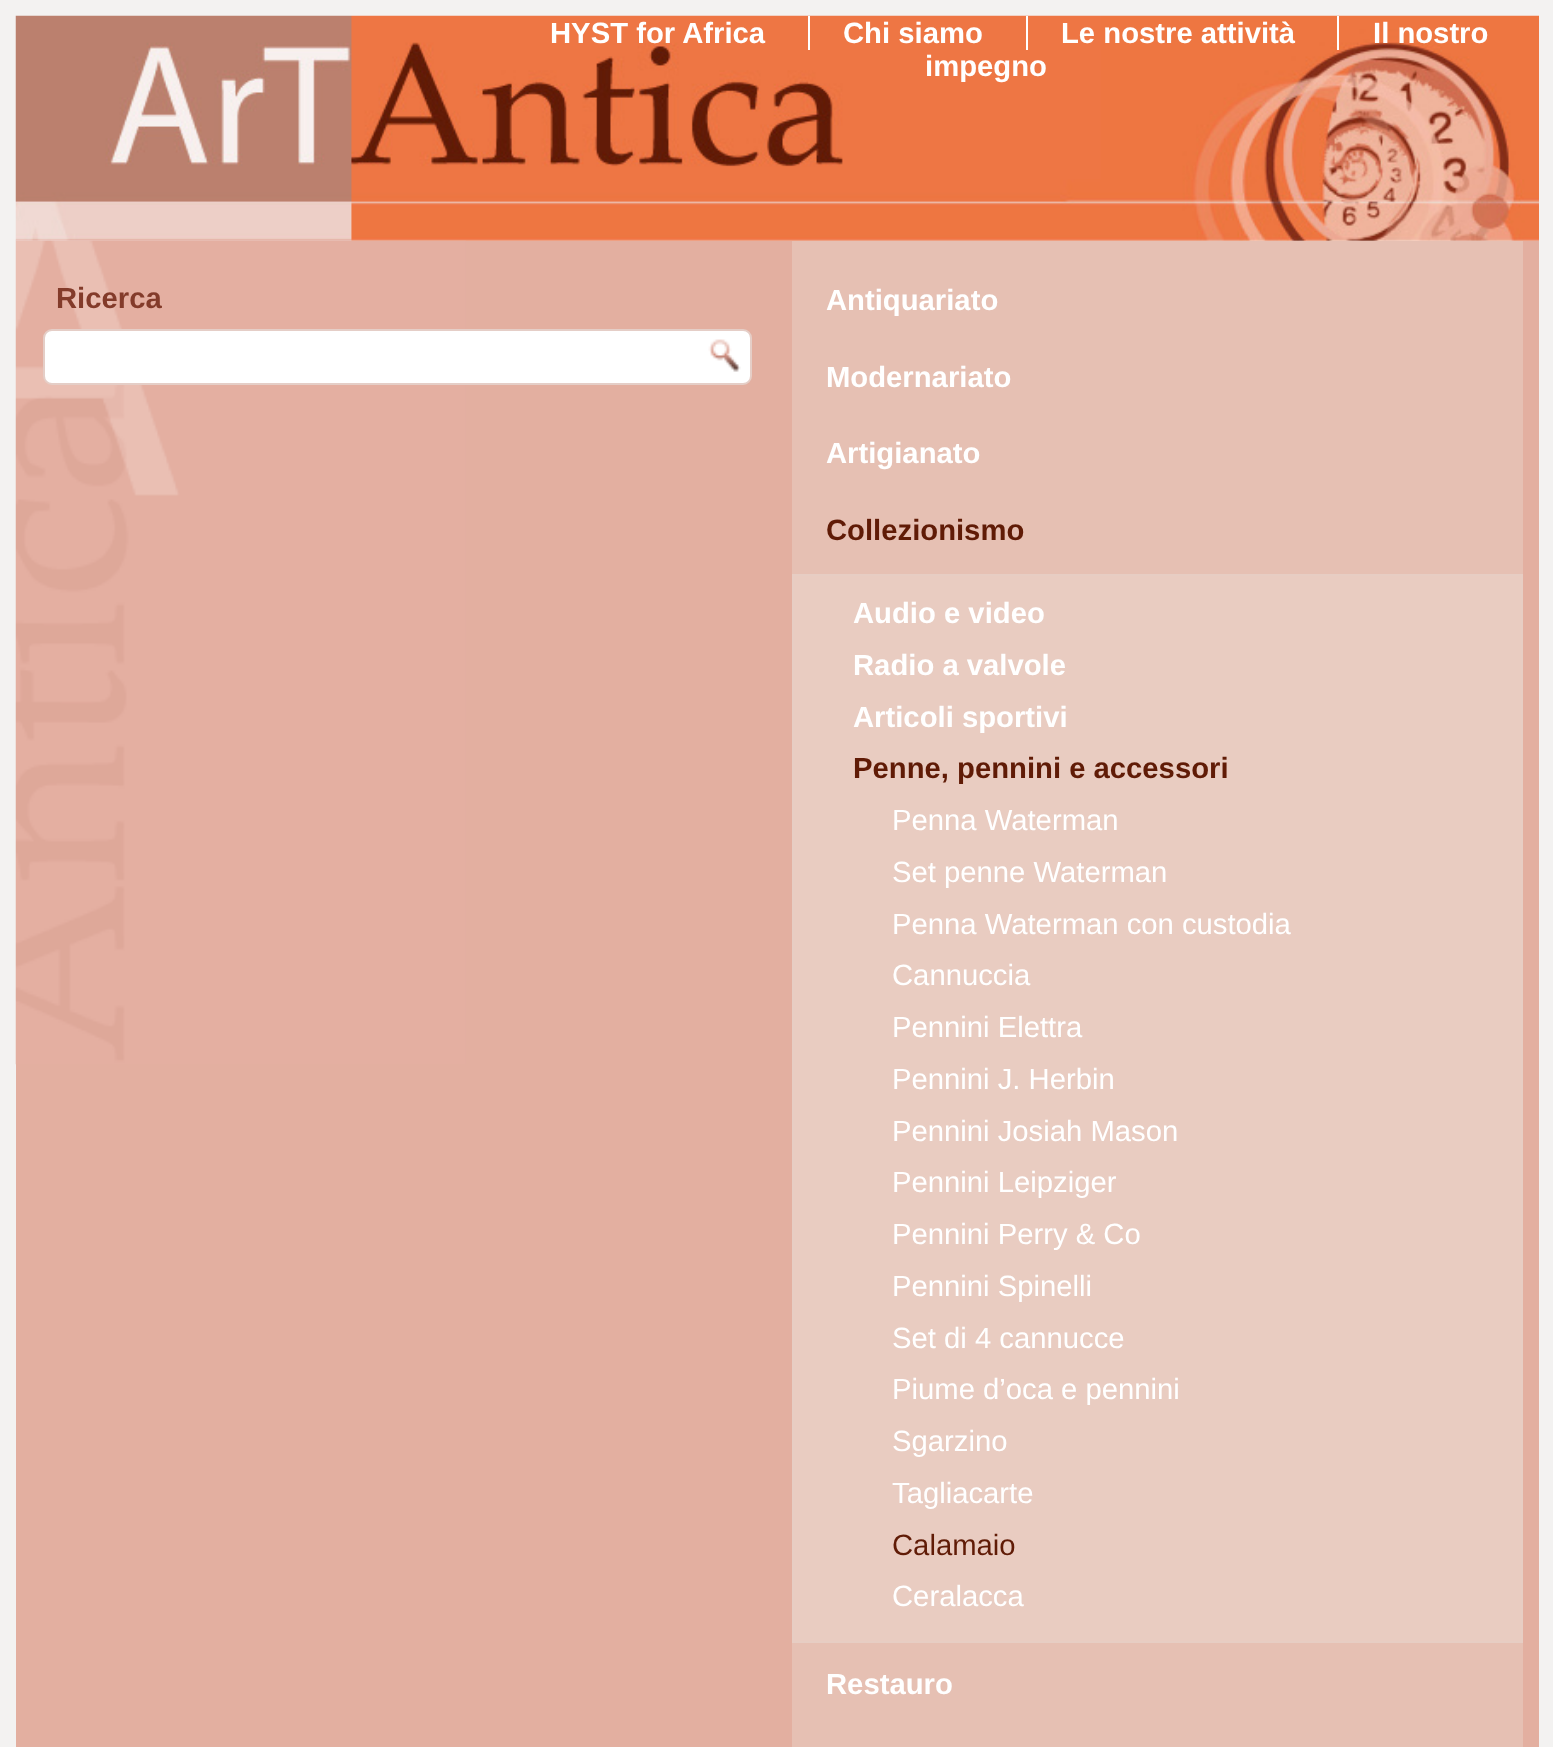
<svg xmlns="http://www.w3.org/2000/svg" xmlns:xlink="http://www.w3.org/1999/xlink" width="1553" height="1747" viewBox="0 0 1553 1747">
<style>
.cls-1{font:bold 29.25px Liberation Sans;fill:#ffffff}
.cls-2{font:bold 29.25px Liberation Sans;fill:#833b2a}
.cls-3{font:bold 29.25px Liberation Sans;fill:#601b06}
.cls-4{font:29.25px Liberation Sans;fill:#ffffff}
.cls-5{font:29.25px Liberation Sans;fill:#601b06}
</style>
<rect width="100%" height="100%" fill="#f3f2f1"/>
<image xlink:href="image0.png" x="15" y="15" width="1524" height="226"/>
<rect fill="#ffffff" x="808" y="16" width="2" height="34"/>
<rect fill="#ffffff" x="1026" y="16" width="2" height="34"/>
<rect fill="#ffffff" x="1337" y="16" width="2" height="34"/>
<rect fill="#e3afa0" x="16" y="241" width="1523" height="1506"/>
<image xlink:href="image1.png" x="15" y="240" width="451" height="825"/>
<rect fill="#ffffff" stroke="#e5cec7" stroke-width="2" x="44" y="330" width="707" height="54" rx="8"/>
<image xlink:href="image2.png" x="708" y="339" width="33" height="33"/>
<rect fill="#e6c0b3" x="792" y="241" width="731" height="1506"/>
<rect fill="#e9ccc1" stroke="#e7cdc3" stroke-width="2" x="793" y="575" width="729" height="1067"/>
<text class="cls-1" x="550" y="43">HYST for Africa</text>
<text class="cls-1" x="843" y="43">Chi siamo</text>
<text class="cls-1" x="1061" y="43">Le nostre attività</text>
<text class="cls-1" x="1373" y="43">Il nostro</text>
<text class="cls-1" x="925" y="76">impegno</text>
<text class="cls-2" x="56" y="308">Ricerca</text>
<text class="cls-1" x="826" y="310">Antiquariato</text>
<text class="cls-1" x="826" y="387">Modernariato</text>
<text class="cls-1" x="826" y="463">Artigianato</text>
<text class="cls-3" x="826" y="540">Collezionismo</text>
<text class="cls-1"><tspan x="853" y="623">Audio e video</tspan><tspan x="853" y="675">Radio a valvole</tspan><tspan x="853" y="727">Articoli sportivi</tspan></text>
<text class="cls-3" x="853" y="778">Penne, pennini e accessori</text>
<text class="cls-4"><tspan x="892" y="830">Penna Waterman</tspan><tspan x="892" y="882">Set penne Waterman</tspan><tspan x="892" y="934">Penna Waterman con custodia</tspan><tspan x="892" y="985">Cannuccia</tspan><tspan x="892" y="1037">Pennini Elettra</tspan><tspan x="892" y="1089">Pennini J. Herbin</tspan><tspan x="892" y="1141">Pennini Josiah Mason</tspan><tspan x="892" y="1192">Pennini Leipziger</tspan><tspan x="892" y="1244">Pennini Perry &amp; Co</tspan><tspan x="892" y="1296">Pennini Spinelli</tspan><tspan x="892" y="1348">Set di 4 cannucce</tspan><tspan x="892" y="1399">Piume d’oca e pennini</tspan><tspan x="892" y="1451">Sgarzino</tspan><tspan x="892" y="1503">Tagliacarte</tspan></text>
<text class="cls-5" x="892" y="1555">Calamaio</text>
<text class="cls-4" x="892" y="1606">Ceralacca</text>
<text class="cls-1" x="826" y="1694">Restauro</text>
</svg>
